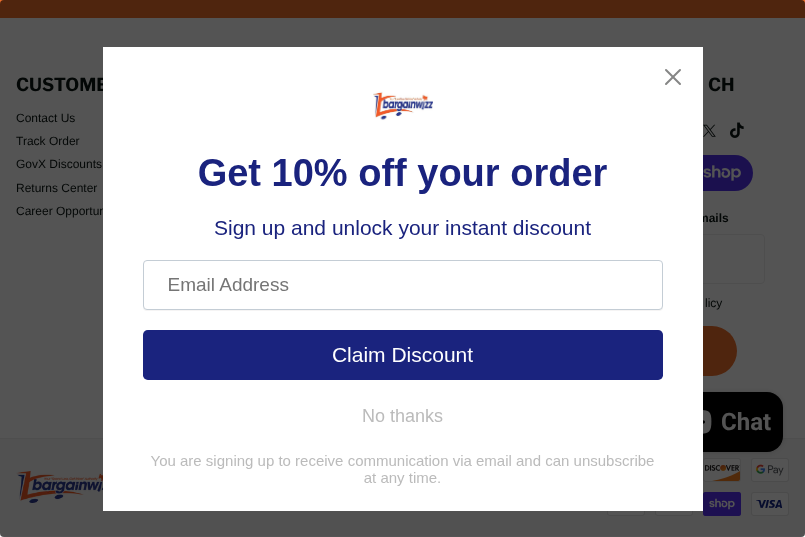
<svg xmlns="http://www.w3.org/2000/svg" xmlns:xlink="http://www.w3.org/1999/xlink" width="805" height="537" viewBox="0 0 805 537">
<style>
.cls-1{font:bold 18px Libre Franklin;fill:#0b1613}
.cls-2{font:12px Arimo;fill:#0b1613}
.cls-3{font:bold 12px Arimo;fill:#0b1613}
.cls-4{font:bold 24px Roboto;fill:#ffffff}
</style>
<rect width="100%" height="100%" fill="#f0702c"/>
<rect fill="#ffffff" x="0" y="18" width="805" height="519"/>
<image xlink:href="image1.png" x="703" y="124" width="13" height="13"/>
<image xlink:href="image2.png" x="730" y="122" width="14" height="16"/>
<rect fill="#5433eb" x="593" y="155" width="160" height="36" rx="18"/>
<image xlink:href="image3.png" x="703" y="165" width="38" height="16"/>
<rect fill="none" stroke="#ecedec" x="593.5" y="234.5" width="171" height="49" rx="3.5"/>
<rect fill="#f0702c" x="593" y="326" width="144" height="50" rx="25"/>
<rect fill="#f4f4f4" x="0" y="439" width="805" height="97"/>
<rect fill="#ecedec" x="0" y="438" width="805" height="1"/>
<image xlink:href="image4.png" x="16" y="471" width="87" height="32"/>
<image xlink:href="image5.png" x="703" y="458" width="38" height="24"/>
<image xlink:href="image6.png" x="751" y="458" width="38" height="24"/>
<image xlink:href="image7.png" x="607" y="511" width="38" height="5"/>
<image xlink:href="image7.png" x="655" y="511" width="38" height="5"/>
<image xlink:href="image8.png" x="703" y="492" width="38" height="24"/>
<image xlink:href="image9.png" x="751" y="492" width="38" height="24"/>
<rect fill="#000000" fill-opacity="0.15" filter="blur(2.5px)" x="670" y="392" width="113" height="60" rx="16"/>
<rect fill="#000000" x="670" y="392" width="113" height="60" rx="16"/>
<image xlink:href="image10.png" x="703" y="410" width="9" height="24"/>
<text class="cls-1" x="16" y="91">CUSTOME</text>
<text class="cls-2"><tspan x="16" y="122">Contact Us</tspan><tspan x="16" y="145">Track Order</tspan><tspan x="16" y="168">GovX Discounts</tspan></text>
<text class="cls-2"><tspan x="16" y="192">Returns Center</tspan><tspan x="16" y="215">Career Opportun</tspan></text>
<text class="cls-1" x="708" y="91">CH</text>
<text class="cls-3" x="698" y="222">mails</text>
<text class="cls-2" x="705" y="307">licy</text>
<text class="cls-4" x="721" y="430">Chat</text>
<image xlink:href="image0.png" x="0" y="0" width="805" height="537"/>
</svg>
